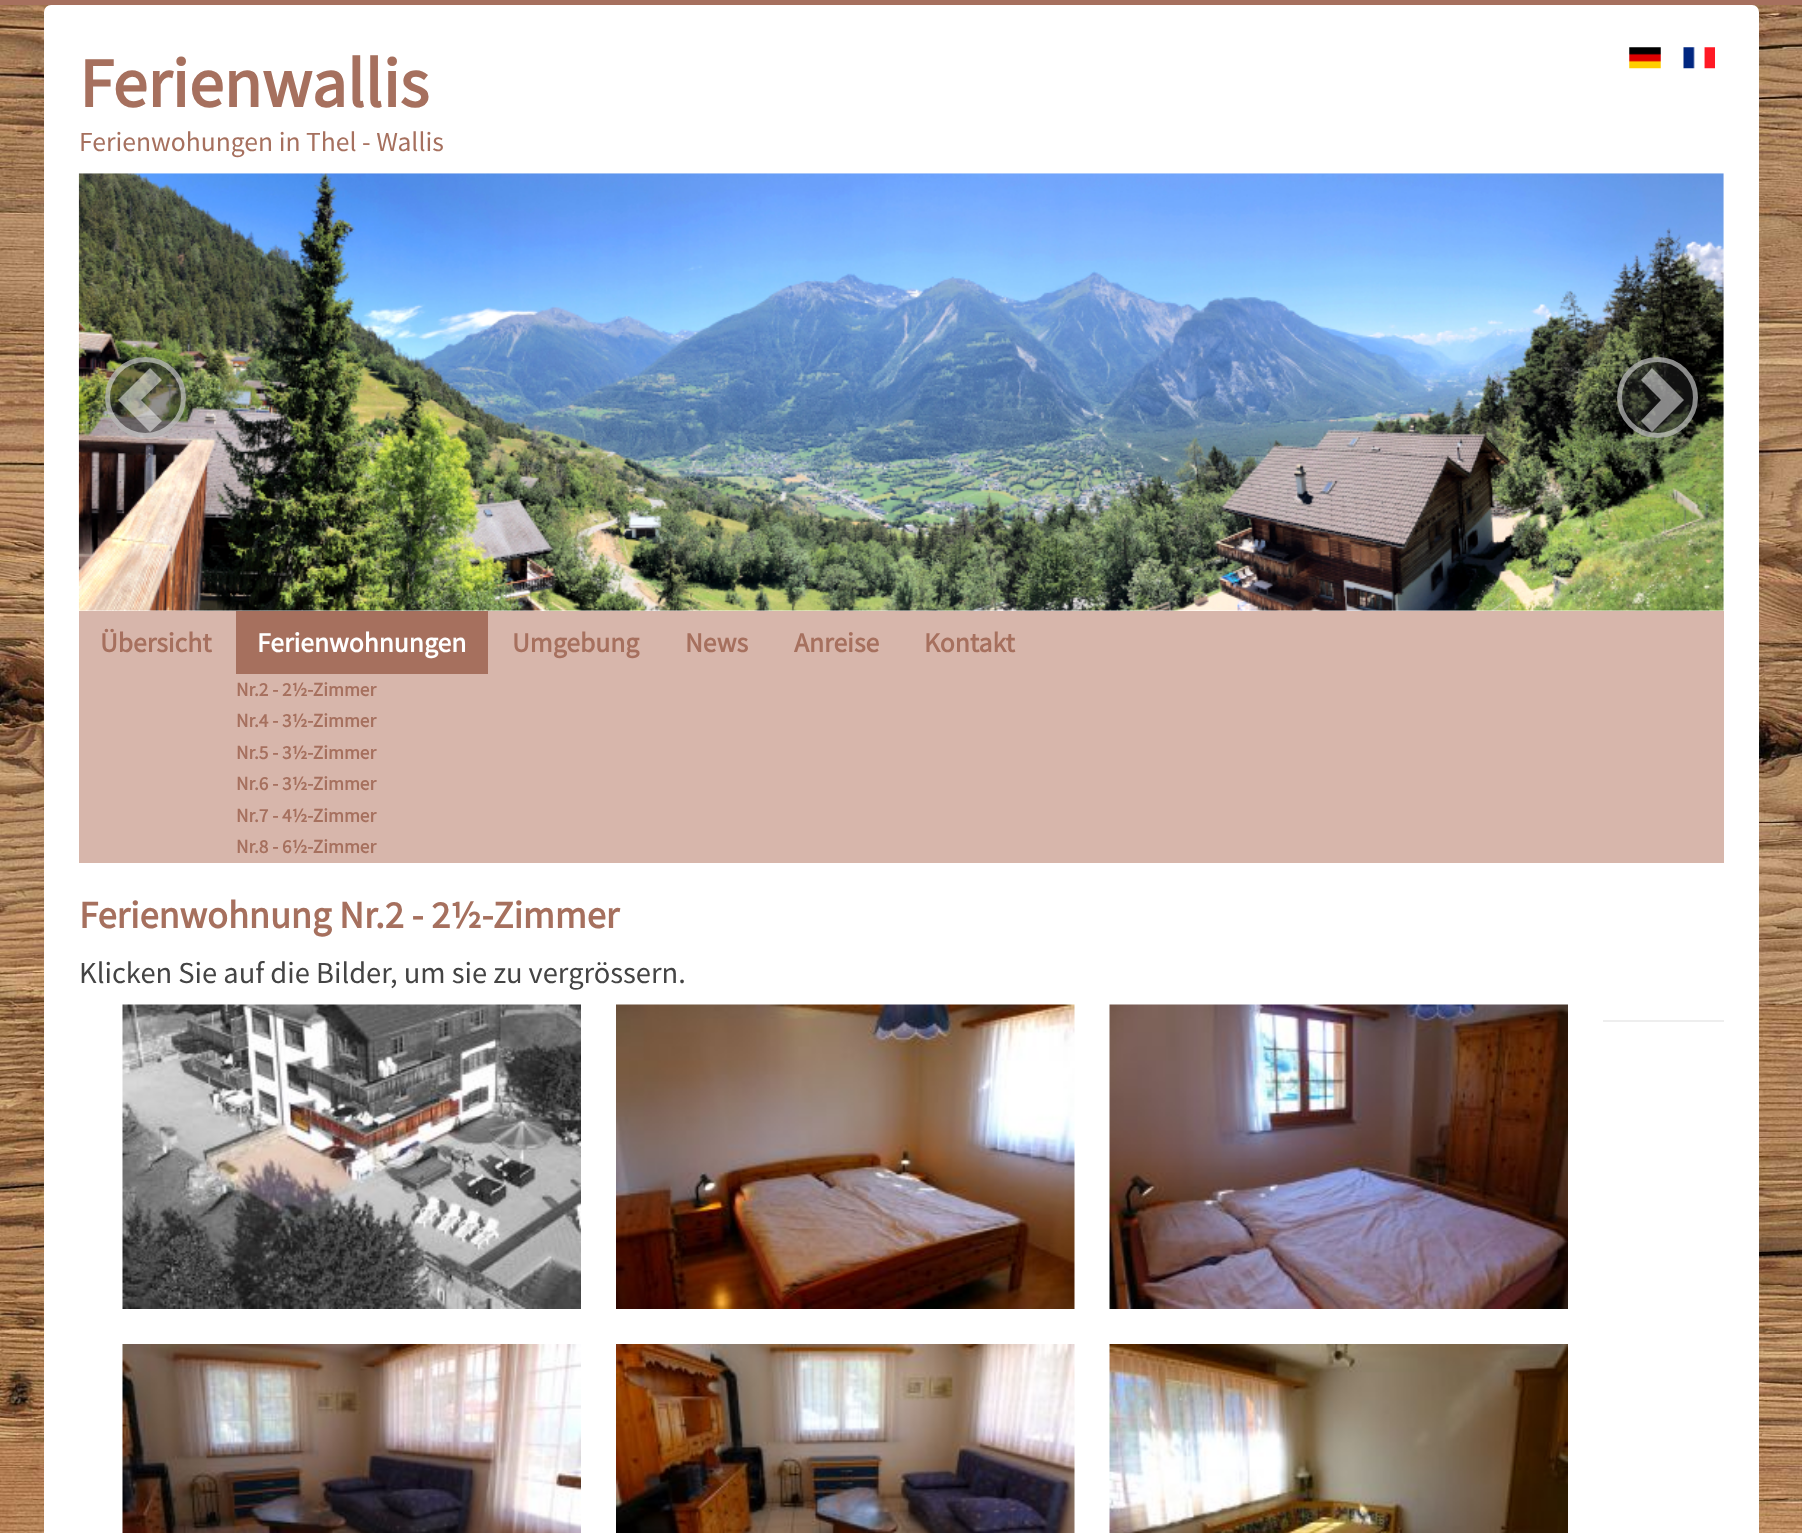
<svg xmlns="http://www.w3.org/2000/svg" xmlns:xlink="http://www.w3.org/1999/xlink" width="1802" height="1533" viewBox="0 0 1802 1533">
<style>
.cls-1{font:bold 70px Source Sans Pro;fill:#a6705e}
.cls-2{font:27.6px Source Sans Pro;fill:#a6705e}
.cls-3{font:bold 27.6px Source Sans Pro;fill:#a6705e}
.cls-4{font:bold 27.6px Source Sans Pro;fill:#ffffff}
.cls-5{font:bold 19.25px Source Sans Pro;fill:#a6705e}
.cls-6{font:bold 38.5px Source Sans Pro;fill:#a6705e}
.cls-7{font:30.5px Source Sans Pro;fill:#444444}
</style>
<rect width="100%" height="100%" fill="#ffffff"/>
<image xlink:href="image0.png" x="0" y="5" width="1802" height="1528"/>
<rect fill="#a6705e" x="0" y="0" width="1802" height="5"/>
<rect fill="#ffffff" x="44" y="5" width="1715" height="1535" rx="7"/>
<image xlink:href="image1.png" x="1629" y="47" width="32" height="22"/>
<image xlink:href="image2.png" x="1683" y="47" width="32" height="22"/>
<image xlink:href="image3.png" x="78" y="173" width="1646" height="438"/>
<circle fill="#222222" fill-opacity="0.5" cx="145.5" cy="397.5" r="40.5"/>
<circle fill="none" stroke="#ffffff" stroke-opacity="0.5" stroke-width="5" cx="145.5" cy="397.5" r="38"/>
<path fill="#ffffff" fill-opacity="0.5" d="M162 380L141 400L162 421L150 432L118 400L150 368Z"/>
<circle fill="#222222" fill-opacity="0.5" cx="1657.5" cy="397.5" r="40.5"/>
<circle fill="none" stroke="#ffffff" stroke-opacity="0.5" stroke-width="5" cx="1657.5" cy="397.5" r="38"/>
<path fill="#ffffff" fill-opacity="0.5" d="M1684 400L1652 432L1641 421L1661 400L1641 380L1652 368Z"/>
<rect fill="#d7b6ab" x="79" y="611" width="1645" height="252"/>
<rect fill="#a6705e" x="236" y="611" width="252" height="63"/>
<image xlink:href="image4.png" x="122" y="1004" width="459" height="305"/>
<image xlink:href="image5.png" x="616" y="1004" width="459" height="305"/>
<image xlink:href="image6.png" x="1109" y="1004" width="459" height="305"/>
<image xlink:href="image7.png" x="122" y="1344" width="459" height="189"/>
<image xlink:href="image8.png" x="616" y="1344" width="459" height="189"/>
<image xlink:href="image9.png" x="1109" y="1344" width="459" height="189"/>
<rect fill="#eeeeee" x="1603" y="1020" width="121" height="2"/>
<text class="cls-1" x="79" y="107">Ferienwallis</text>
<text class="cls-2" x="79" y="151">Ferienwohungen in Thel - Wallis</text>
<text class="cls-3" x="100" y="652">Übersicht</text>
<text class="cls-4" x="257" y="652">Ferienwohnungen</text>
<text class="cls-5"><tspan x="236" y="696">Nr.2 - 2½-Zimmer</tspan><tspan x="236" y="727">Nr.4 - 3½-Zimmer</tspan><tspan x="236" y="759">Nr.5 - 3½-Zimmer</tspan><tspan x="236" y="790">Nr.6 - 3½-Zimmer</tspan><tspan x="236" y="822">Nr.7 - 4½-Zimmer</tspan><tspan x="236" y="853">Nr.8 - 6½-Zimmer</tspan></text>
<text class="cls-3" x="512" y="652">Umgebung</text>
<text class="cls-3" x="685" y="652">News</text>
<text class="cls-3" x="794" y="652">Anreise</text>
<text class="cls-3" x="924" y="652">Kontakt</text>
<text class="cls-6" x="79" y="928">Ferienwohnung Nr.2 - 2½-Zimmer</text>
<text class="cls-7" x="79" y="983">Klicken Sie auf die Bilder, um sie zu vergrössern.</text>
</svg>
